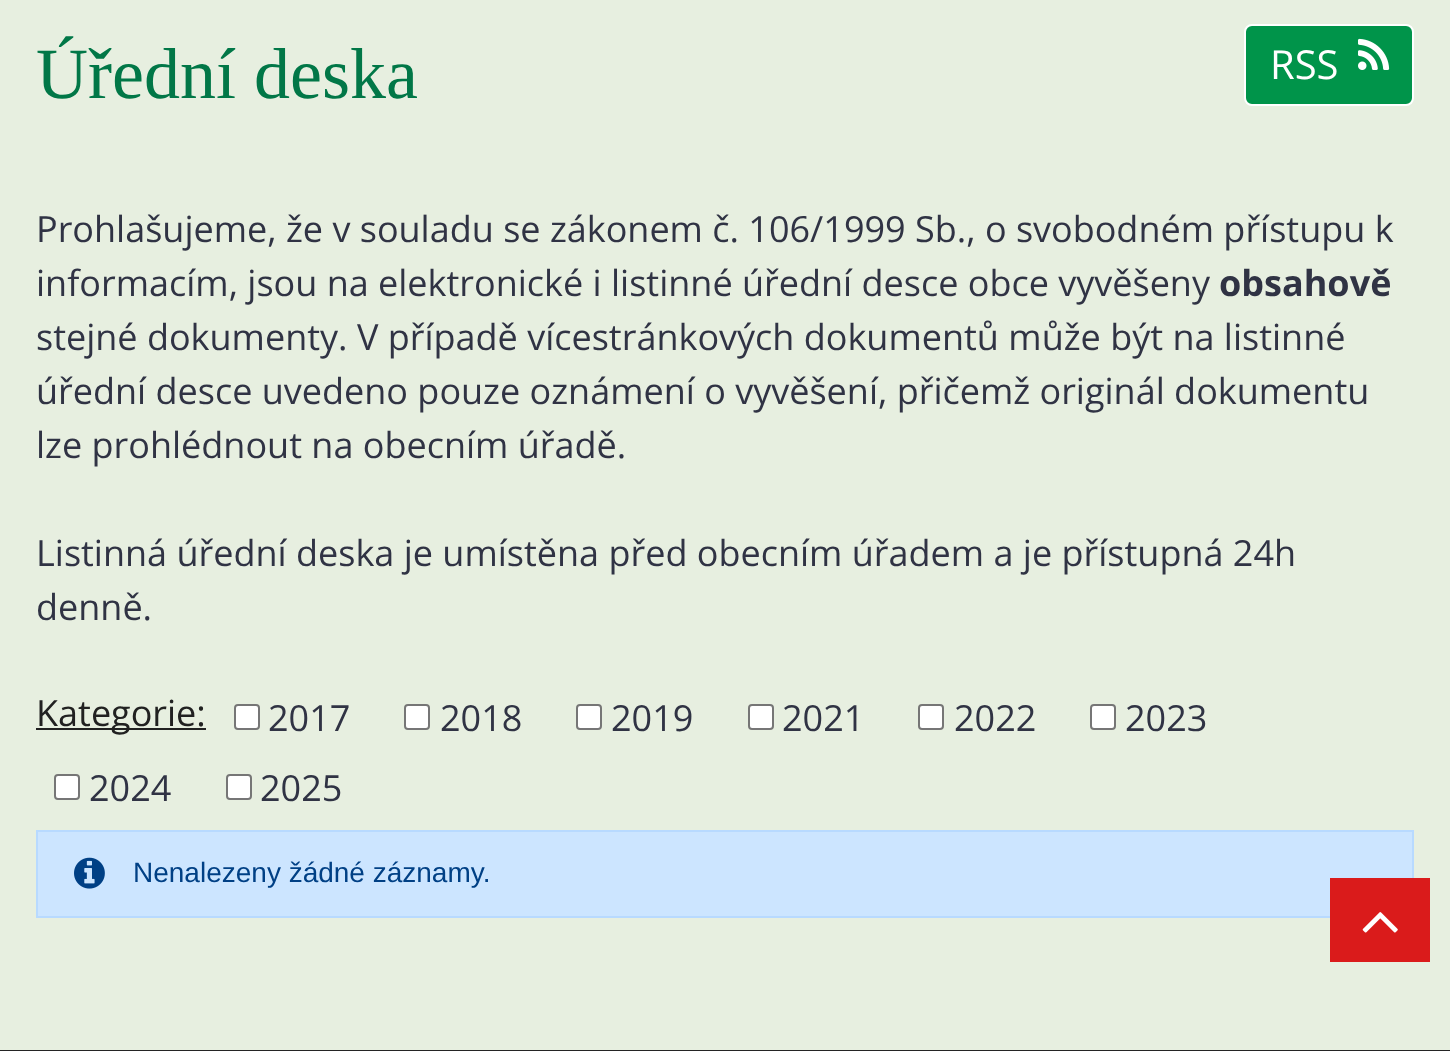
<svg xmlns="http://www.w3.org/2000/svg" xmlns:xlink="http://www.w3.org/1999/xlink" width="1450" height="1051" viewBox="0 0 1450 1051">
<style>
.cls-1{font:72px Liberation Serif;fill:#017747}
.cls-2{font:40px Open Sans;fill:#ffffff}
.cls-3{font:36px Open Sans;fill:#303344}
.cls-4{font:bold 36px Open Sans;fill:#303344}
.cls-5{font:36px Open Sans;fill:#212121}
.cls-6{font:28px Liberation Sans;fill:#004085}
</style>
<rect width="100%" height="100%" fill="#e7efe0"/>
<rect fill="#00944a" stroke="#ffffff" stroke-width="2" x="1245" y="25" width="168" height="80" rx="7"/>
<image xlink:href="image0.png" x="1358" y="38" width="32" height="32"/>
<rect fill="#212121" x="36" y="728" width="170" height="2"/>
<rect fill="#ffffff" stroke="#767676" stroke-width="2" x="235" y="705" width="24" height="24" rx="3"/>
<rect fill="#ffffff" stroke="#767676" stroke-width="2" x="405" y="705" width="24" height="24" rx="3"/>
<rect fill="#ffffff" stroke="#767676" stroke-width="2" x="577" y="705" width="24" height="24" rx="3"/>
<rect fill="#ffffff" stroke="#767676" stroke-width="2" x="749" y="705" width="24" height="24" rx="3"/>
<rect fill="#ffffff" stroke="#767676" stroke-width="2" x="919" y="705" width="24" height="24" rx="3"/>
<rect fill="#ffffff" stroke="#767676" stroke-width="2" x="1091" y="705" width="24" height="24" rx="3"/>
<rect fill="#ffffff" stroke="#767676" stroke-width="2" x="55" y="775" width="24" height="24" rx="3"/>
<rect fill="#ffffff" stroke="#767676" stroke-width="2" x="227" y="775" width="24" height="24" rx="3"/>
<rect fill="#cce5ff" stroke="#b8daff" stroke-width="2" x="37" y="831" width="1376" height="86"/>
<image xlink:href="image1.png" x="74" y="857" width="31" height="32"/>
<rect fill="#da1b1b" x="1330" y="878" width="100" height="84"/>
<image xlink:href="image2.png" x="1362" y="912" width="36" height="21"/>
<rect fill="#242424" x="0" y="1050" width="1450" height="1"/>
<text class="cls-1" x="36" y="98">Úřední deska</text>
<text class="cls-2" x="1270" y="79">RSS</text>
<text class="cls-3"><tspan x="36" y="242">Prohlašujeme, že v souladu se zákonem č. 106/1999 Sb., o svobodném přístupu k</tspan><tspan x="36" y="296">informacím, jsou na elektronické i listinné úřední desce obce vyvěšeny</tspan></text>
<text class="cls-4" x="1219" y="296">obsahově</text>
<text class="cls-3"><tspan x="36" y="350">stejné dokumenty. V případě vícestránkových dokumentů může být na listinné</tspan><tspan x="36" y="404">úřední desce uvedeno pouze oznámení o vyvěšení, přičemž originál dokumentu</tspan><tspan x="36" y="458">lze prohlédnout na obecním úřadě.</tspan></text>
<text class="cls-3"><tspan x="36" y="566">Listinná úřední deska je umístěna před obecním úřadem a je přístupná 24h</tspan><tspan x="36" y="620">denně.</tspan></text>
<text class="cls-5" x="36" y="726">Kategorie:</text>
<text class="cls-3" x="268" y="731">2017</text>
<text class="cls-3" x="440" y="731">2018</text>
<text class="cls-3" x="611" y="731">2019</text>
<text class="cls-3" x="782" y="731">2021</text>
<text class="cls-3" x="954" y="731">2022</text>
<text class="cls-3" x="1125" y="731">2023</text>
<text class="cls-3" x="89" y="801">2024</text>
<text class="cls-3" x="260" y="801">2025</text>
<text class="cls-6" x="133" y="882">Nenalezeny žádné záznamy.</text>
</svg>
